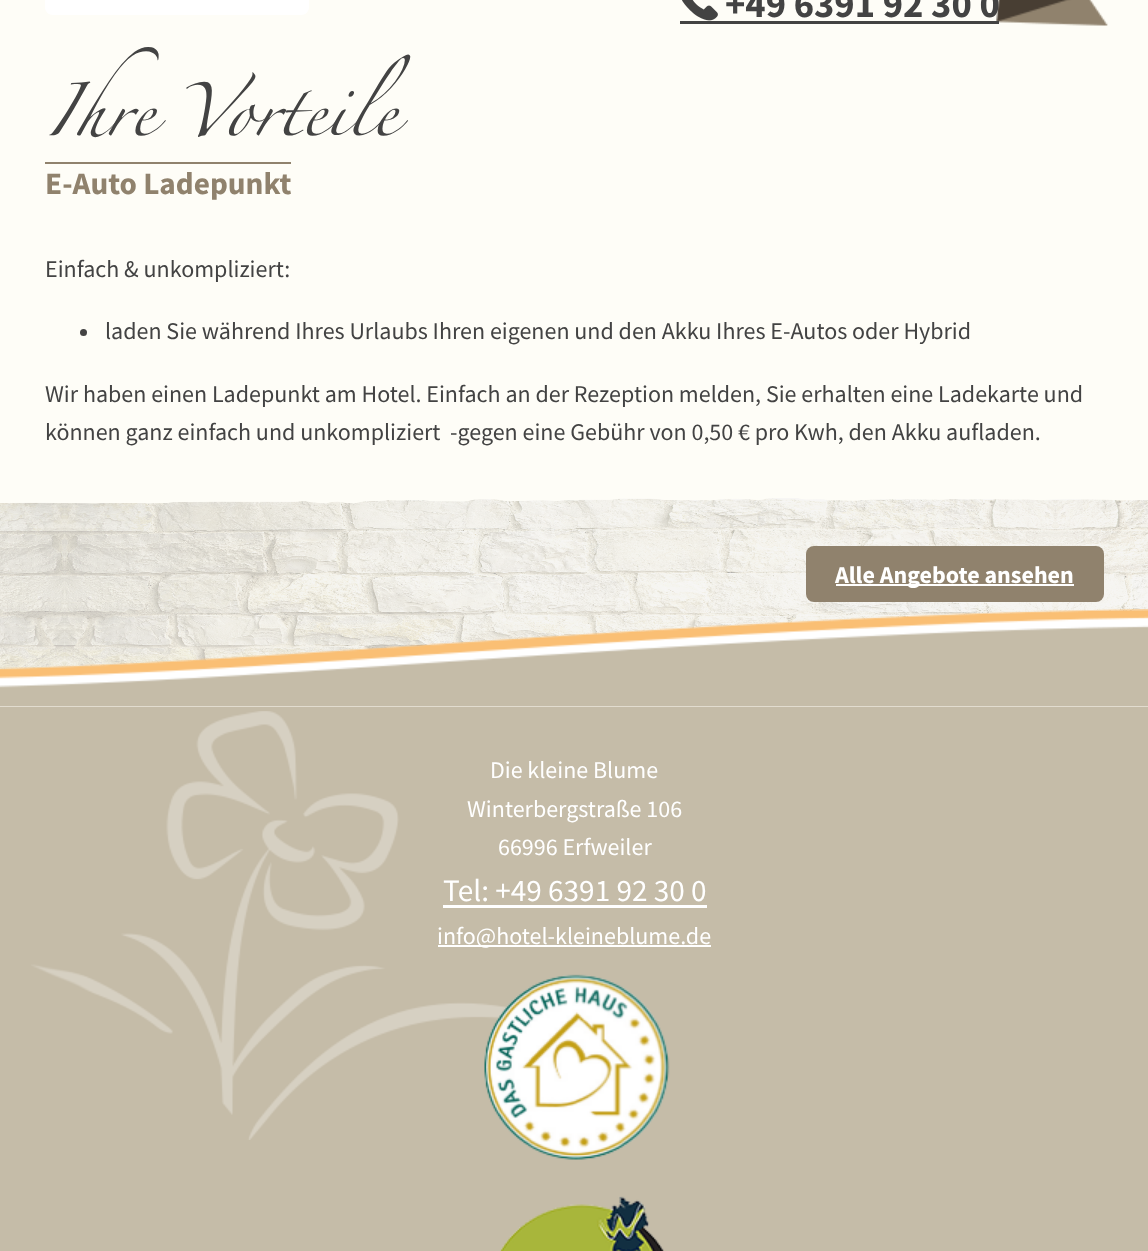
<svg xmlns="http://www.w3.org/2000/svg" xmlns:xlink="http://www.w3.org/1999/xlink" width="1148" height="1251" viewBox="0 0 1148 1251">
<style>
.cls-1{font:bold 38.5px Source Sans Pro;fill:#434343}
.cls-2{font:120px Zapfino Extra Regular;fill:#434343}
.cls-3{font:bold 31.25px Source Sans Pro;fill:#90826d}
.cls-4{font:24px Source Sans Pro;fill:#434343}
.cls-5{font:bold 24px Source Sans Pro;fill:#ffffff}
.cls-6{font:24px Source Sans Pro;fill:#ffffff}
.cls-7{font:31.25px Source Sans Pro;fill:#ffffff}
</style>
<rect width="100%" height="100%" fill="#fefdf7"/>
<path fill="#ffffff" d="M45-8H309V7C309 11.5 305.5 15 301 15H53C48.5 15 45 11.5 45 7Z"/>
<image xlink:href="image0.png" x="682" y="0" width="36" height="21"/>
<image xlink:href="image1.png" x="996" y="0" width="112" height="26"/>
<rect fill="#434343" x="680" y="21" width="319" height="3"/>
<rect fill="#90826d" x="45" y="162" width="246" height="2"/>
<circle fill="#434343" cx="83.5" cy="332.5" r="3.5"/>
<image xlink:href="image2.png" x="0" y="498" width="1148" height="172"/>
<rect fill="#90826d" x="806" y="546" width="298" height="56" rx="8"/>
<rect fill="#ffffff" x="836" y="584" width="238" height="2"/>
<rect fill="#c5bca8" x="0" y="707" width="1148" height="544"/>
<image xlink:href="image3.png" x="31" y="711" width="478" height="429"/>
<image xlink:href="image4.png" x="0" y="609" width="1148" height="98"/>
<rect fill="#ffffff" x="443" y="905" width="264" height="3"/>
<rect fill="#ffffff" x="438" y="945" width="273" height="2"/>
<image xlink:href="image5.png" x="484" y="974" width="186" height="186"/>
<image xlink:href="image6.png" x="500" y="1196" width="164" height="55"/>
<text class="cls-1" x="725" y="17">+49 6391 92 30 0</text>
<text class="cls-2" x="45" y="135">Ihre Vorteile</text>
<text class="cls-3" x="45" y="194">E-Auto Ladepunkt</text>
<text class="cls-4" x="45" y="277">Einfach &amp; unkompliziert:</text>
<text class="cls-4" x="105" y="339">laden Sie während Ihres Urlaubs Ihren eigenen und den Akku Ihres E-Autos oder Hybrid</text>
<text class="cls-4" xml:space="preserve"><tspan x="45" y="402">Wir haben einen Ladepunkt am Hotel. Einfach an der Rezeption melden, Sie erhalten eine Ladekarte und</tspan><tspan x="45" y="440">können ganz einfach und unkompliziert  -gegen eine Gebühr von 0,50 € pro Kwh, den Akku aufladen.</tspan></text>
<text class="cls-5" x="835" y="583">Alle Angebote ansehen</text>
<text class="cls-6" x="490" y="778">Die kleine Blume</text>
<text class="cls-6" x="467" y="817">Winterbergstraße 106</text>
<text class="cls-6" x="498" y="855">66996 Erfweiler</text>
<text class="cls-7" x="443" y="901">Tel: +49 6391 92 30 0</text>
<text class="cls-6" x="437" y="944">info@hotel-kleineblume.de</text>
</svg>
